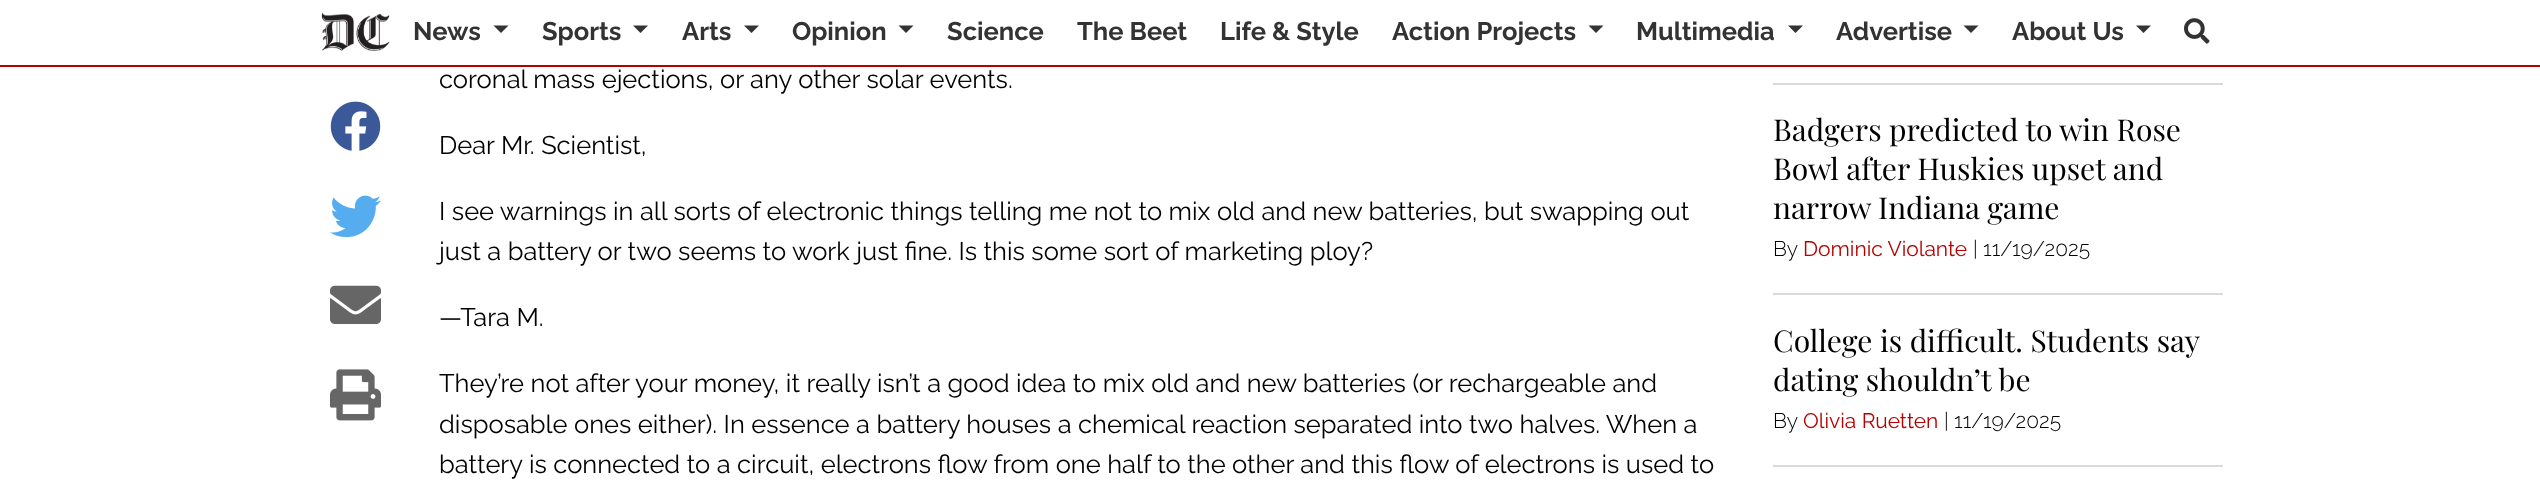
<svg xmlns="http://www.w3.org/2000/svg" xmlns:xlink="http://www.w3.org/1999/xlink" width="2540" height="500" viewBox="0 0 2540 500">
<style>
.cls-1{font:bold 25.5px Raleway;fill:#333333}
.cls-2{font:25.5px Raleway;fill:#020100}
.cls-3{font:30px Playfair Display;fill:#020100}
.cls-4{font:300 21px Raleway;fill:#020100}
.cls-5{font:21px Raleway;fill:#b70101}
</style>
<rect width="100%" height="100%" fill="#ffffff"/>
<rect fill="#b70101" x="0" y="65" width="2540" height="2"/>
<image xlink:href="image0.png" x="321" y="12" width="69" height="39"/>
<path fill="#333333" d="M493.5 25.5H508.5L501 33Z"/>
<path fill="#333333" d="M633 25.5H648L640.5 33Z"/>
<path fill="#333333" d="M744 25.5H759L751.5 33Z"/>
<path fill="#333333" d="M898.5 25.5H913.5L906 33Z"/>
<path fill="#333333" d="M1588.5 25.5H1603.5L1596 33Z"/>
<path fill="#333333" d="M1788 25.5H1803L1795.5 33Z"/>
<path fill="#333333" d="M1963.5 25.5H1978.5L1971 33Z"/>
<path fill="#333333" d="M2136 25.5H2151L2143.5 33Z"/>
<image xlink:href="image1.png" x="2184" y="18" width="26" height="26"/>
<image xlink:href="image2.png" x="330" y="101" width="51" height="50"/>
<image xlink:href="image3.png" x="330" y="195" width="51" height="43"/>
<image xlink:href="image4.png" x="330" y="285" width="51" height="39"/>
<image xlink:href="image5.png" x="330" y="369" width="51" height="52"/>
<rect fill="#dadada" x="1773" y="83" width="450" height="2"/>
<rect fill="#dadada" x="1773" y="293" width="450" height="2"/>
<rect fill="#dadada" x="1773" y="465" width="450" height="2"/>
<text class="cls-1" x="413" y="40">News</text>
<text class="cls-1" x="542" y="40">Sports</text>
<text class="cls-1" x="682" y="40">Arts</text>
<text class="cls-1" x="792" y="40">Opinion</text>
<text class="cls-1" x="947" y="40">Science</text>
<text class="cls-1" x="1077" y="40">The Beet</text>
<text class="cls-1" x="1220" y="40">Life &amp; Style</text>
<text class="cls-1" x="1392" y="40">Action Projects</text>
<text class="cls-1" x="1636" y="40">Multimedia</text>
<text class="cls-1" x="1836" y="40">Advertise</text>
<text class="cls-1" x="2012" y="40">About Us</text>
<text class="cls-2" x="439" y="88">coronal mass ejections, or any other solar events.</text>
<text class="cls-2" x="439" y="154">Dear Mr. Scientist,</text>
<text class="cls-2"><tspan x="439" y="220">I see warnings in all sorts of electronic things telling me not to mix old and new batteries, but swapping out</tspan><tspan x="439" y="260">just a battery or two seems to work just fine. Is this some sort of marketing ploy?</tspan></text>
<text class="cls-2" x="439" y="326">—Tara M.</text>
<text class="cls-2"><tspan x="439" y="392">They’re not after your money, it really isn’t a good idea to mix old and new batteries (or rechargeable and</tspan><tspan x="439" y="433">disposable ones either). In essence a battery houses a chemical reaction separated into two halves. When a</tspan><tspan x="439" y="473">battery is connected to a circuit, electrons flow from one half to the other and this flow of electrons is used to</tspan></text>
<text class="cls-3"><tspan x="1773" y="141">Badgers predicted to win Rose</tspan><tspan x="1773" y="180">Bowl after Huskies upset and</tspan><tspan x="1773" y="219">narrow Indiana game</tspan></text>
<text class="cls-4" x="1773" y="256">By</text>
<text class="cls-5" x="1803" y="256">Dominic Violante</text>
<text class="cls-4" x="1973" y="256">| 11/19/2025</text>
<text class="cls-3"><tspan x="1773" y="352">College is difficult. Students say</tspan><tspan x="1773" y="391">dating shouldn’t be</tspan></text>
<text class="cls-4" x="1773" y="428">By</text>
<text class="cls-5" x="1803" y="428">Olivia Ruetten</text>
<text class="cls-4" x="1944" y="428">| 11/19/2025</text>
</svg>
